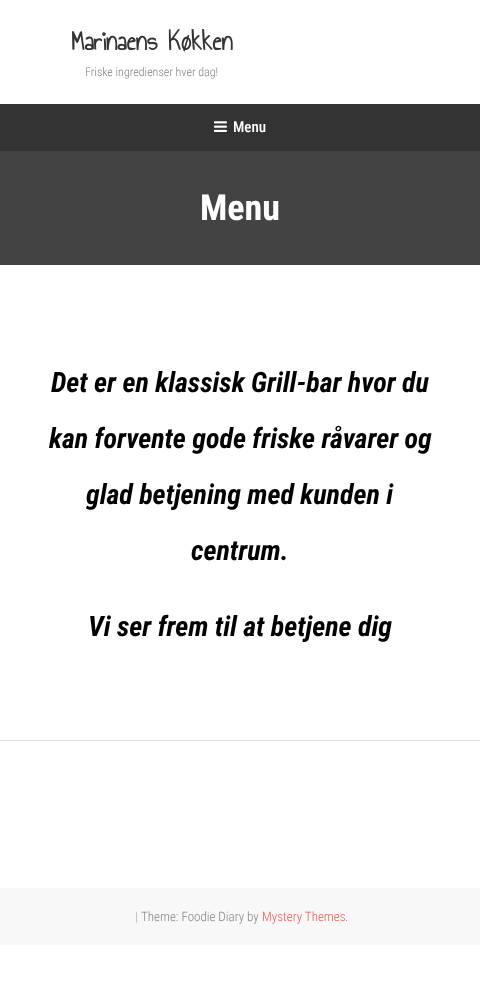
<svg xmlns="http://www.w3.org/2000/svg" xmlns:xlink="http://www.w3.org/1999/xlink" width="480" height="1000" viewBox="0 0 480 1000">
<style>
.cls-1{font:bold 28px Annie Use Your Telescope;fill:#333333}
.cls-2{font:300 12px Roboto Condensed;fill:#838383}
.cls-3{font:500 15px Roboto Condensed;fill:#ffffff}
.cls-4{font:bold 36px Roboto Condensed;fill:#ffffff}
.cls-5{font:italic bold 28px Roboto Condensed;fill:#000000}
.cls-6{font:100 13px Roboto Condensed;fill:#838383}
.cls-7{font:300 13px Roboto Condensed;fill:#838383}
.cls-8{font:300 13px Roboto Condensed;fill:#ef5350}
</style>
<rect width="100%" height="100%" fill="#ffffff"/>
<rect fill="#333333" x="0" y="104" width="480" height="47"/>
<image xlink:href="image0.png" x="214" y="121" width="13" height="11"/>
<rect fill="#434343" x="0" y="151" width="480" height="114"/>
<rect fill="#e1e1e1" x="0" y="740" width="480" height="1"/>
<rect fill="#f8f8f8" x="0" y="888" width="480" height="57"/>
<text class="cls-1" x="71" y="50">Marinaens Køkken</text>
<text class="cls-2" x="85" y="76">Friske ingredienser hver dag!</text>
<text class="cls-3" x="233" y="132">Menu</text>
<text class="cls-4" x="200" y="220">Menu</text>
<text class="cls-5" x="51" y="392">Det er en klassisk Grill-bar hvor du</text>
<text class="cls-5" x="49" y="448">kan forvente gode friske råvarer og</text>
<text class="cls-5" x="86" y="504">glad betjening med kunden i</text>
<text class="cls-5" x="191" y="560">centrum.</text>
<text class="cls-5" x="88" y="636">Vi ser frem til at betjene dig</text>
<text class="cls-6" x="135" y="921">|</text>
<text class="cls-7" x="141" y="921">Theme: Foodie Diary by</text>
<text class="cls-8" x="262" y="921">Mystery Themes</text>
<text class="cls-7" x="345" y="921">.</text>
</svg>
